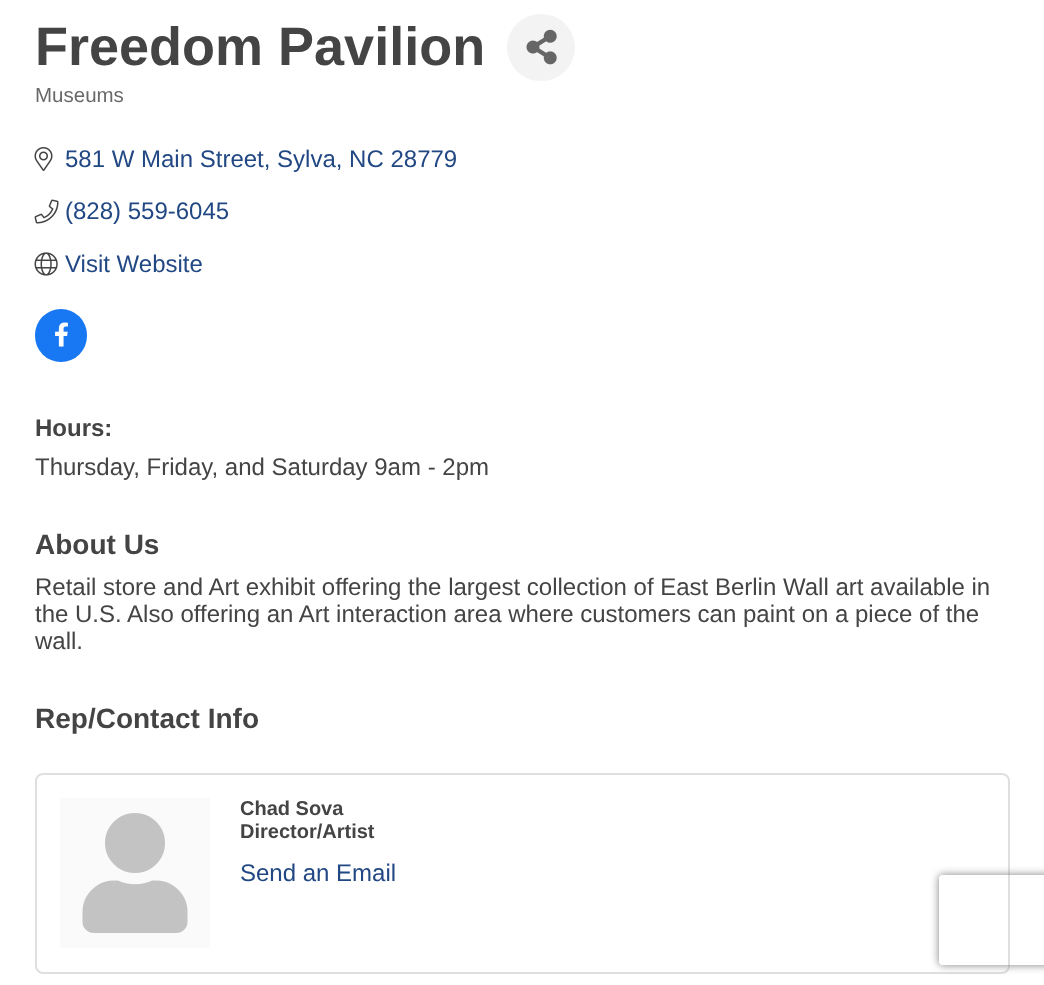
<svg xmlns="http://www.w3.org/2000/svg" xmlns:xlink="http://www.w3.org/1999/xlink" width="1044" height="985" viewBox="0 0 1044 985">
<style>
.cls-1{font:bold 54px Liberation Sans;fill:#444444}
.cls-2{font:20.5px Liberation Sans;fill:#696969}
.cls-3{font:24px Liberation Sans;fill:#224884}
.cls-4{font:bold 24px Liberation Sans;fill:#444444}
.cls-5{font:24px Liberation Sans;fill:#444444}
.cls-6{font:bold 28px Liberation Sans;fill:#444444}
.cls-7{font:bold 20px Liberation Sans;fill:#444444}
</style>
<defs>
<clipPath id="clip1"><path d="M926 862H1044V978H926ZM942 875H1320C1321.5 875 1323 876.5 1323 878V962C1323 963.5 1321.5 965 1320 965H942C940.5 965 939 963.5 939 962V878C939 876.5 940.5 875 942 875Z" clip-rule="evenodd"/></clipPath>
</defs>
<rect width="100%" height="100%" fill="#ffffff"/>
<rect fill="#f3f3f3" x="507" y="14" width="68" height="67" rx="33.5"/>
<image xlink:href="image0.png" x="526" y="29" width="31" height="36"/>
<image xlink:href="image1.png" x="34" y="147" width="19" height="24"/>
<image xlink:href="image2.png" x="34" y="199" width="25" height="25"/>
<image xlink:href="image3.png" x="34" y="252" width="24" height="24"/>
<rect fill="#1877f2" x="35" y="309" width="52" height="53" rx="26"/>
<image xlink:href="image4.png" x="55" y="322" width="13" height="25"/>
<rect fill="none" stroke="#dfdfdf" stroke-width="2" x="36" y="774" width="973" height="199" rx="7"/>
<rect fill="#fafafa" x="60" y="798" width="150" height="150"/>
<image xlink:href="image5.png" x="82" y="813" width="106" height="120"/>
<g clip-path="url(#clip1)">
<rect fill="#808080" filter="blur(4px)" x="939" y="875" width="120" height="90" rx="3"/>
</g>
<text class="cls-1" x="35" y="65">Freedom Pavilion</text>
<text class="cls-2" x="35" y="102">Museums</text>
<text class="cls-3" x="65" y="167">581 W Main Street, Sylva, NC 28779</text>
<text class="cls-3" x="65" y="219">(828) 559-6045</text>
<text class="cls-3" x="65" y="272">Visit Website</text>
<text class="cls-4" x="35" y="436">Hours:</text>
<text class="cls-5" x="35" y="475">Thursday, Friday, and Saturday 9am - 2pm</text>
<text class="cls-6" x="35" y="554">About Us</text>
<text class="cls-5"><tspan x="35" y="595">Retail store and Art exhibit offering the largest collection of East Berlin Wall art available in</tspan><tspan x="35" y="622">the U.S. Also offering an Art interaction area where customers can paint on a piece of the</tspan><tspan x="35" y="649">wall.</tspan></text>
<text class="cls-6" x="35" y="728">Rep/Contact Info</text>
<text class="cls-7"><tspan x="240" y="815">Chad Sova</tspan><tspan x="240" y="838">Director/Artist</tspan></text>
<text class="cls-3" x="240" y="881">Send an Email</text>
</svg>
